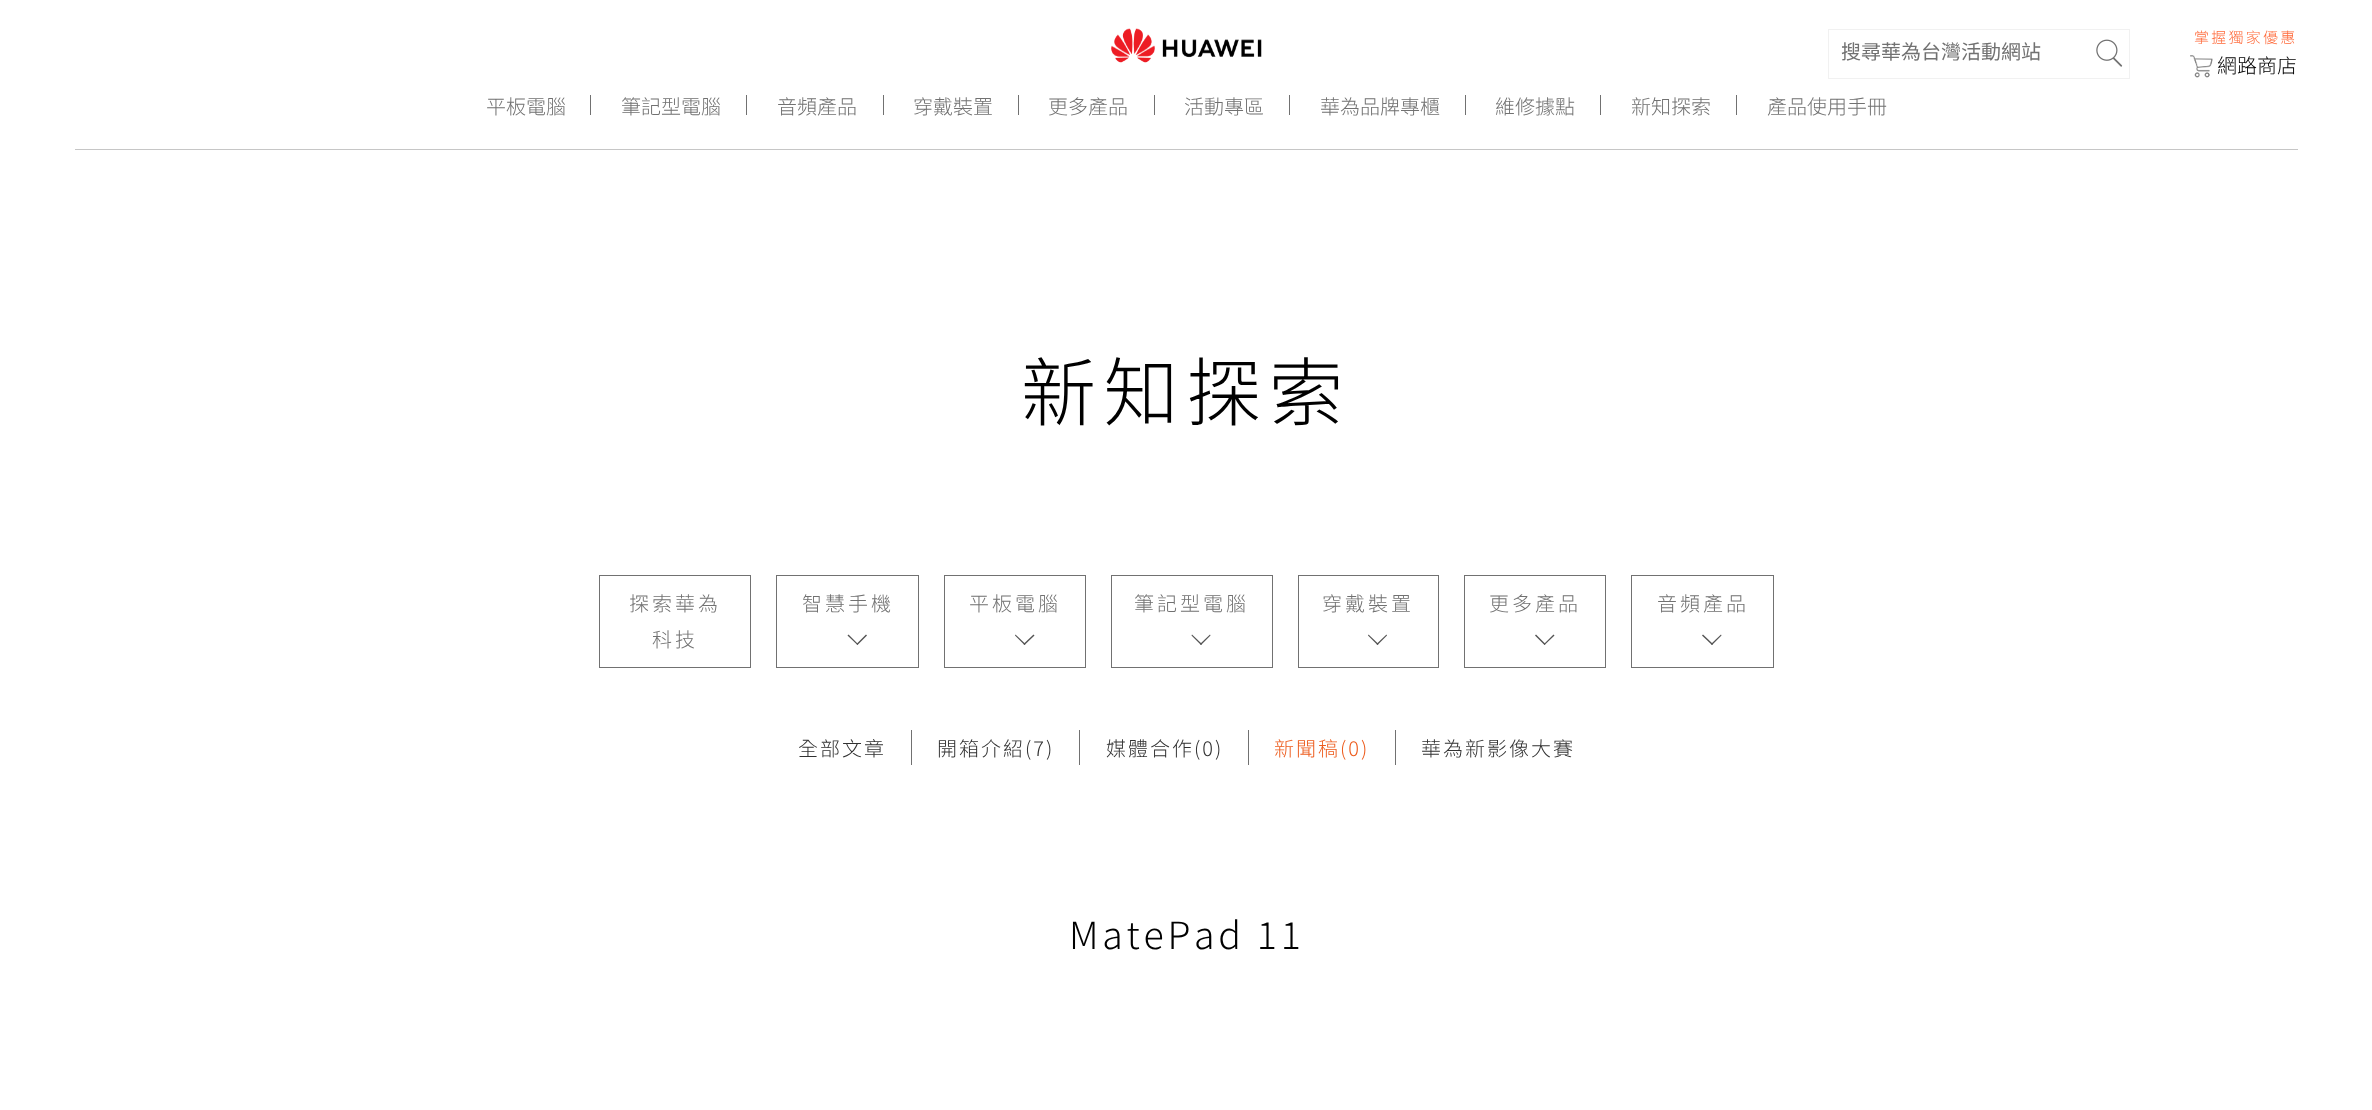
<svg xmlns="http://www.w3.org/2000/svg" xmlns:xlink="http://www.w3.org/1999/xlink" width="2372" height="1110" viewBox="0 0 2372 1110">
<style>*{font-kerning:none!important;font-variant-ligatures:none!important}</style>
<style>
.cls-1{font:20px Noto Sans CJK TC;fill:#717171}
.cls-2{font:300 15px Noto Sans TC;letter-spacing:2.25px;fill:#ff6939}
.cls-3{font:300 20px Noto Sans TC;fill:#000000}
.cls-4{font:300 20px Noto Sans TC;fill:#717171}
.cls-5{font:300 75px Noto Sans TC;letter-spacing:7.5px;fill:#000000}
.cls-6{font:300 20px Noto Sans TC;letter-spacing:3px;fill:#717171}
.cls-7{font:300 20px Noto Sans TC;letter-spacing:2px;fill:#313131}
.cls-8{font:300 20px Noto Sans TC;letter-spacing:2px;fill:#ed5b1c}
.cls-9{font:300 37.5px Noto Sans TC;letter-spacing:3.75px;fill:#000000}
</style>
<rect width="100%" height="100%" fill="#ffffff"/>
<image xlink:href="image0.png" x="1111" y="28" width="151" height="35"/>
<rect fill="none" stroke="#f1f1f1" x="1828.5" y="29.5" width="301" height="49"/>
<image xlink:href="image1.png" x="2096" y="39" width="27" height="28"/>
<image xlink:href="image2.png" x="2190" y="55" width="23" height="23"/>
<rect fill="#c6c6c6" x="75" y="149" width="2223" height="1"/>
<rect fill="#717171" x="590" y="95" width="1" height="20"/>
<rect fill="#717171" x="746" y="95" width="1" height="20"/>
<rect fill="#717171" x="883" y="95" width="1" height="20"/>
<rect fill="#717171" x="1018" y="95" width="1" height="20"/>
<rect fill="#717171" x="1154" y="95" width="1" height="20"/>
<rect fill="#717171" x="1289" y="95" width="1" height="20"/>
<rect fill="#717171" x="1465" y="95" width="1" height="20"/>
<rect fill="#717171" x="1600" y="95" width="1" height="20"/>
<rect fill="#717171" x="1736" y="95" width="1" height="20"/>
<rect fill="none" stroke="#717171" x="599.5" y="575.5" width="151" height="92"/>
<rect fill="none" stroke="#717171" x="776.5" y="575.5" width="142" height="92"/>
<path fill="#535353" d="M857.5 645L847.5 635.5L848.5 634.5L858 644Z"/>
<path fill="#535353" d="M857.5 645L856.5 644L866 634.5L867 635.5Z"/>
<rect fill="none" stroke="#717171" x="944.5" y="575.5" width="141" height="92"/>
<path fill="#535353" d="M1024.5 645L1015 635.5L1015.5 634.5L1025.5 644Z"/>
<path fill="#535353" d="M1024.5 645L1023.5 644L1033.5 634.5L1034.5 635.5Z"/>
<rect fill="none" stroke="#717171" x="1111.5" y="575.5" width="161" height="92"/>
<path fill="#535353" d="M1201 645L1191.5 635.5L1192 634.5L1202 644Z"/>
<path fill="#535353" d="M1201 645L1200 644L1210 634.5L1210.5 635.5Z"/>
<rect fill="none" stroke="#717171" x="1298.5" y="575.5" width="140" height="92"/>
<path fill="#535353" d="M1377.5 645L1368 635.5L1368.5 634.5L1378.5 644Z"/>
<path fill="#535353" d="M1377.5 645L1376.5 644L1386.5 634.5L1387 635.5Z"/>
<rect fill="none" stroke="#717171" x="1464.5" y="575.5" width="141" height="92"/>
<path fill="#535353" d="M1544.5 645L1535 635.5L1536 634.5L1545.5 644Z"/>
<path fill="#535353" d="M1544.5 645L1544 644L1553.5 634.5L1554.5 635.5Z"/>
<rect fill="none" stroke="#717171" x="1631.5" y="575.5" width="142" height="92"/>
<path fill="#535353" d="M1712 645L1702 635.5L1703 634.5L1713 644Z"/>
<path fill="#535353" d="M1712 645L1711 644L1721 634.5L1721.5 635.5Z"/>
<rect fill="#717171" x="911" y="730" width="1" height="35"/>
<rect fill="#717171" x="1079" y="730" width="1" height="35"/>
<rect fill="#717171" x="1248" y="730" width="1" height="35"/>
<rect fill="#717171" x="1395" y="730" width="1" height="35"/>
<text class="cls-1" x="1841" y="59">搜尋華為台灣活動網站</text>
<text class="cls-2" x="2194" y="43">掌握獨家優惠</text>
<text class="cls-3" x="2217" y="73">網路商店</text>
<text class="cls-4" x="486" y="114">平板電腦</text>
<text class="cls-4" x="621" y="114">筆記型電腦</text>
<text class="cls-4" x="777" y="114">音頻產品</text>
<text class="cls-4" x="913" y="114">穿戴裝置</text>
<text class="cls-4" x="1048" y="114">更多產品</text>
<text class="cls-4" x="1184" y="114">活動專區</text>
<text class="cls-4" x="1320" y="114">華為品牌專櫃</text>
<text class="cls-4" x="1495" y="114">維修據點</text>
<text class="cls-4" x="1631" y="114">新知探索</text>
<text class="cls-4" x="1767" y="114">產品使用手冊</text>
<text class="cls-5" x="1021" y="420">新知探索</text>
<text class="cls-6" x="629" y="611">探索華為</text>
<text class="cls-6" x="652" y="647">科技</text>
<text class="cls-6" x="802" y="611">智慧手機</text>
<text class="cls-6" x="969" y="611">平板電腦</text>
<text class="cls-6" x="1134" y="611">筆記型電腦</text>
<text class="cls-6" x="1322" y="611">穿戴裝置</text>
<text class="cls-6" x="1489" y="611">更多產品</text>
<text class="cls-6" x="1657" y="611">音頻產品</text>
<text class="cls-7" x="798" y="756">全部文章</text>
<text class="cls-7" x="937" y="756">開箱介紹(7)</text>
<text class="cls-7" x="1106" y="756">媒體合作(0)</text>
<text class="cls-8" x="1274" y="756">新聞稿(0)</text>
<text class="cls-7" x="1421" y="756">華為新影像大賽</text>
<text class="cls-9" x="1069" y="949">MatePad 11</text>
</svg>
